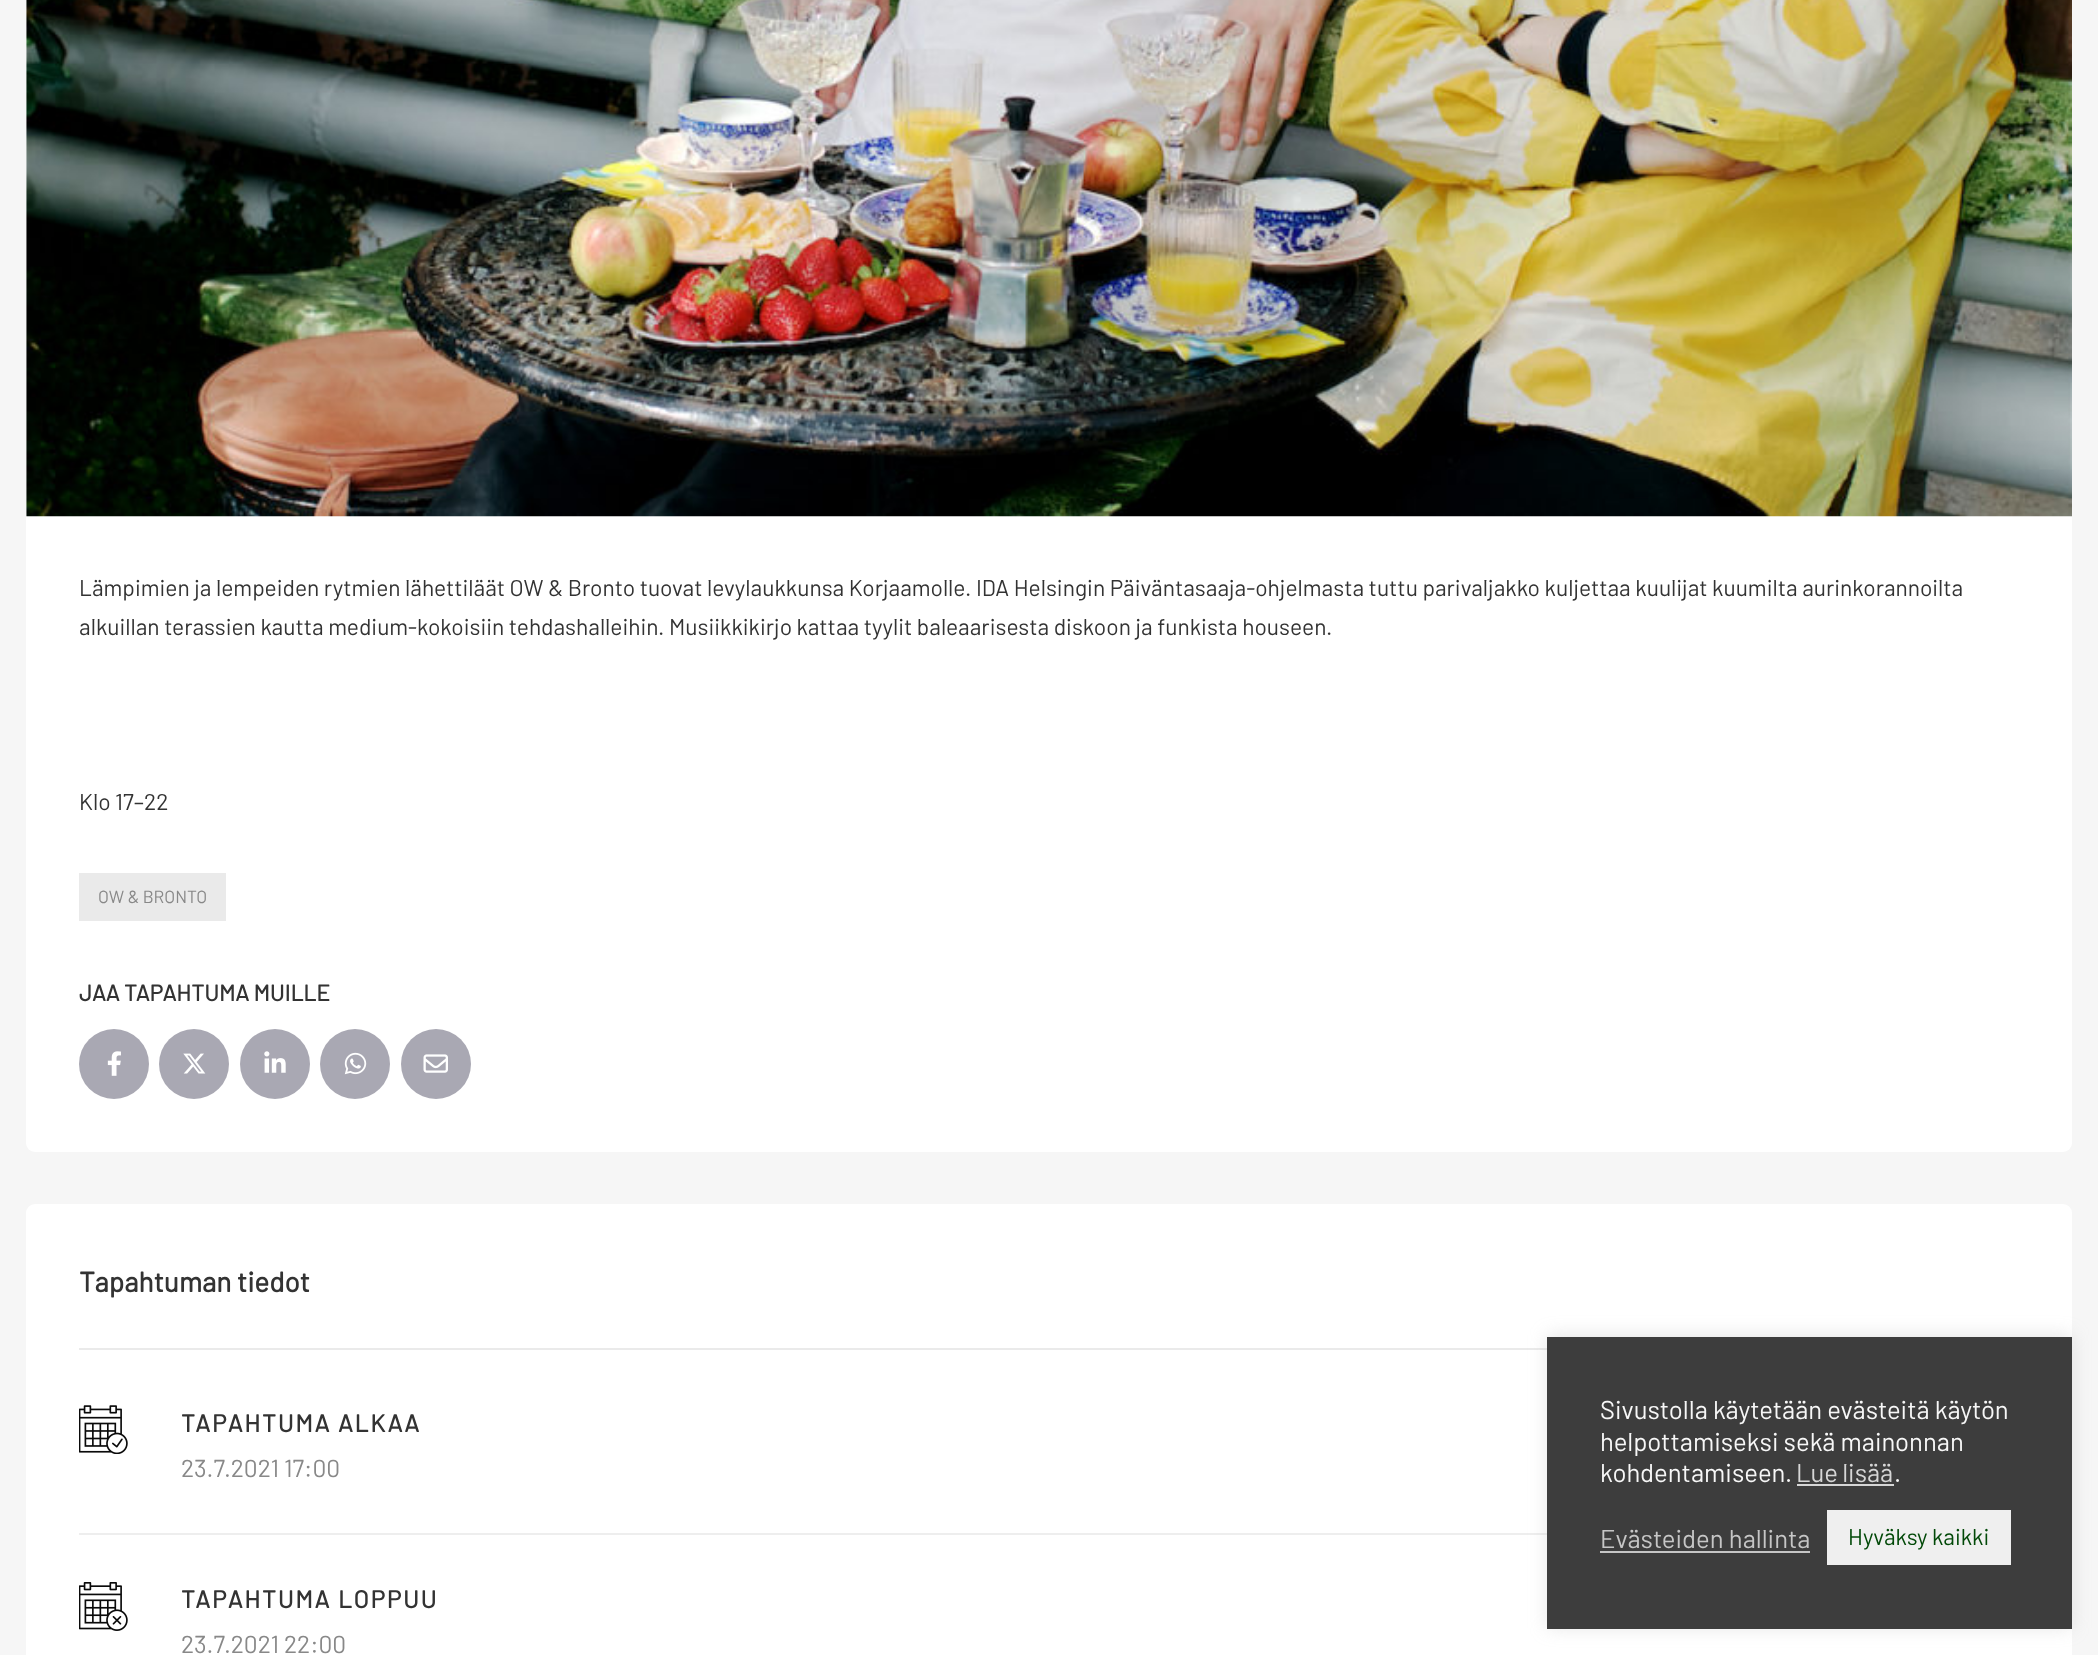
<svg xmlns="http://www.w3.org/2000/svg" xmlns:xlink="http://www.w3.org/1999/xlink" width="2098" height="1655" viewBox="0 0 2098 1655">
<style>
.cls-1{font:22.75px Barlow;fill:#333333}
.cls-2{font:17.5px Barlow;fill:#888888}
.cls-3{font:bold 22.75px Barlow;fill:#333333}
.cls-4{font:bold 28px Barlow;fill:#333333}
.cls-5{font:bold 24.5px Barlow;letter-spacing:1.75px;fill:#333333}
.cls-6{font:24.5px Barlow;fill:#888888}
.cls-7{font:25.7px Barlow;fill:#f7f7f7}
.cls-8{font:25.7px Barlow;fill:#d6d6d6}
.cls-9{font:25.7px Barlow;fill:#c6c6c6}
.cls-10{font:22.75px Barlow;fill:#024908}
</style>
<rect width="100%" height="100%" fill="#f6f6f6"/>
<rect fill="#ffffff" x="26" y="-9" width="2046" height="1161" rx="9"/>
<image xlink:href="image0.png" x="26" y="0" width="2046" height="517"/>
<rect fill="#eaeaea" x="79" y="873" width="147" height="48"/>
<circle fill="#a9a8b3" cx="114" cy="1064" r="35"/>
<image xlink:href="image1.png" x="107" y="1051" width="14" height="25"/>
<circle fill="#a9a8b3" cx="194" cy="1064" r="35"/>
<image xlink:href="image2.png" x="183" y="1053" width="23" height="21"/>
<circle fill="#a9a8b3" cx="275" cy="1064" r="35"/>
<image xlink:href="image3.png" x="264" y="1051" width="22" height="22"/>
<circle fill="#a9a8b3" cx="355" cy="1064" r="35"/>
<image xlink:href="image4.png" x="344" y="1052" width="23" height="23"/>
<circle fill="#a9a8b3" cx="436" cy="1064" r="35"/>
<image xlink:href="image5.png" x="423" y="1054" width="25" height="19"/>
<rect fill="#ffffff" x="26" y="1204" width="2046" height="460" rx="9"/>
<rect fill="#eaeaea" x="79" y="1348" width="1468" height="2"/>
<rect fill="#eeeeee" x="79" y="1533" width="1468" height="2"/>
<image xlink:href="image6.png" x="79" y="1405" width="49" height="49"/>
<image xlink:href="image7.png" x="79" y="1582" width="49" height="49"/>
<rect fill="#acabab" fill-opacity="0.3" filter="blur(9px)" x="1547" y="1335" width="525" height="293"/>
<rect fill="#3d3d3d" x="1547" y="1337" width="525" height="292"/>
<rect fill="#d6d6d6" x="1797" y="1484" width="97" height="2"/>
<rect fill="#c6c6c6" x="1600" y="1551" width="210" height="2"/>
<rect fill="#efefef" x="1827" y="1510" width="184" height="55"/>
<text class="cls-1"><tspan x="79" y="596">Lämpimien ja lempeiden rytmien lähettiläät OW &amp; Bronto tuovat levylaukkunsa Korjaamolle. IDA Helsingin Päiväntasaaja-ohjelmasta tuttu parivaljakko kuljettaa kuulijat kuumilta aurinkorannoilta</tspan><tspan x="79" y="635">alkuillan terassien kautta medium-kokoisiin tehdashalleihin. Musiikkikirjo kattaa tyylit baleaarisesta diskoon ja funkista houseen.</tspan></text>
<text class="cls-1" x="79" y="810">Klo 17–22</text>
<text class="cls-2" x="98" y="903">OW &amp; BRONTO</text>
<text class="cls-3" x="79" y="1001">JAA TAPAHTUMA MUILLE</text>
<text class="cls-4" x="79" y="1292">Tapahtuman tiedot</text>
<text class="cls-5" x="181" y="1432">TAPAHTUMA ALKAA</text>
<text class="cls-6" x="181" y="1477">23.7.2021 17:00</text>
<text class="cls-5" x="181" y="1608">TAPAHTUMA LOPPUU</text>
<text class="cls-6" x="181" y="1653">23.7.2021 22:00</text>
<text class="cls-7"><tspan x="1600" y="1419">Sivustolla käytetään evästeitä käytön</tspan><tspan x="1600" y="1451">helpottamiseksi sekä mainonnan</tspan><tspan x="1600" y="1482">kohdentamiseen.</tspan></text>
<text class="cls-8" x="1796" y="1482" word-spacing="-1">Lue lisää</text>
<text class="cls-7" x="1894" y="1482">.</text>
<text class="cls-9" x="1600" y="1548">Evästeiden hallinta</text>
<text class="cls-10" x="1848" y="1545">Hyväksy kaikki</text>
</svg>
